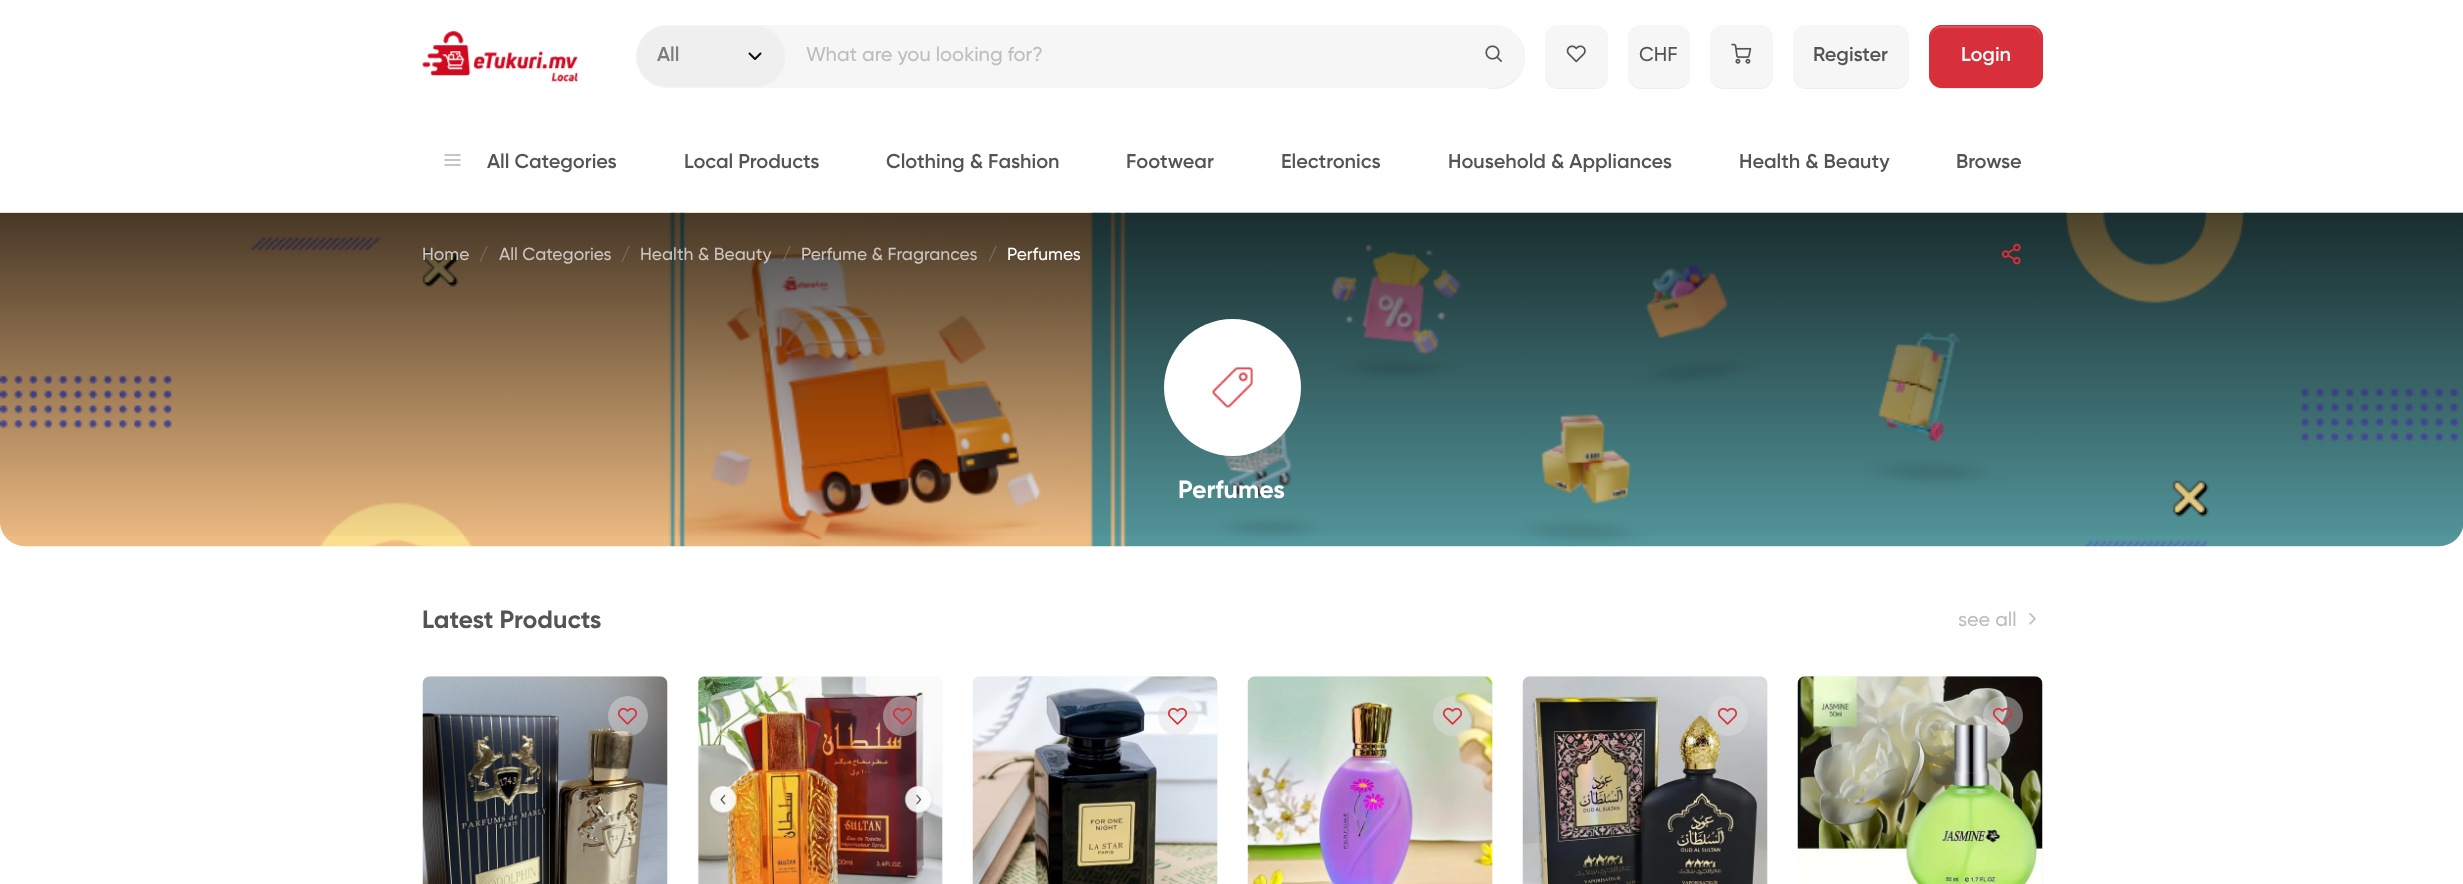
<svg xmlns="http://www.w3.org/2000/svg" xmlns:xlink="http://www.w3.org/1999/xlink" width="2463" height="884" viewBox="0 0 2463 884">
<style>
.cls-1{font:600 20px Gilroy;fill:#7f7b7d}
.cls-2{font:500 20px Gilroy;fill:#bdbdbd}
.cls-3{font:500 20px Gilroy;fill:#545454}
.cls-4{font:600 20px Gilroy;fill:#545454}
.cls-5{font:600 20px Gilroy;fill:#ffffff}
.cls-6{font:500 17.5px Gilroy;fill:#cbc6c0}
.cls-7{font:500 17.5px Gilroy;fill:#857665}
.cls-8{font:500 17.5px Gilroy;fill:#ffffff}
.cls-9{font:bold 25px Gilroy;fill:#ffffff}
.cls-10{font:bold 25px Gilroy;fill:#545454}
</style>
<defs>
<linearGradient id="g1" gradientUnits="userSpaceOnUse" x1="1232" y1="546" x2="1232" y2="213"><stop offset="0" stop-color="#000000" stop-opacity="0"/><stop offset="1" stop-color="#000000" stop-opacity="0.7"/></linearGradient>
<linearGradient id="g2" gradientUnits="userSpaceOnUse" x1="-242" y1="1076" x2="1008" y2="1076"><stop offset="0.08" stop-color="#fafafa"/><stop offset="0.38" stop-color="#f3f3f3"/><stop offset="0.54" stop-color="#fafafa"/></linearGradient>
<linearGradient id="g3" gradientUnits="userSpaceOnUse" x1="33" y1="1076" x2="1283" y2="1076"><stop offset="0.08" stop-color="#fafafa"/><stop offset="0.38" stop-color="#f3f3f3"/><stop offset="0.54" stop-color="#fafafa"/></linearGradient>
<linearGradient id="g4" gradientUnits="userSpaceOnUse" x1="308" y1="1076" x2="1558" y2="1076"><stop offset="0.08" stop-color="#fafafa"/><stop offset="0.38" stop-color="#f3f3f3"/><stop offset="0.54" stop-color="#fafafa"/></linearGradient>
<linearGradient id="g5" gradientUnits="userSpaceOnUse" x1="583" y1="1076" x2="1833" y2="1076"><stop offset="0.08" stop-color="#fafafa"/><stop offset="0.38" stop-color="#f3f3f3"/><stop offset="0.54" stop-color="#fafafa"/></linearGradient>
<linearGradient id="g6" gradientUnits="userSpaceOnUse" x1="858" y1="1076" x2="2108" y2="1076"><stop offset="0.08" stop-color="#fafafa"/><stop offset="0.38" stop-color="#f3f3f3"/><stop offset="0.54" stop-color="#fafafa"/></linearGradient>
<linearGradient id="g7" gradientUnits="userSpaceOnUse" x1="1133" y1="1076" x2="2383" y2="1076"><stop offset="0.08" stop-color="#fafafa"/><stop offset="0.38" stop-color="#f3f3f3"/><stop offset="0.54" stop-color="#fafafa"/></linearGradient>
</defs>
<rect width="100%" height="100%" fill="#ffffff"/>
<image xlink:href="image0.png" x="422" y="31" width="156" height="51"/>
<rect fill="#f6f6f6" x="638" y="25" width="887" height="63" rx="31.5"/>
<rect fill="#efefef" x="636" y="25" width="150" height="63" rx="31.5"/>
<path fill="none" stroke="#0e070b" stroke-width="1.9" stroke-linecap="round" stroke-linejoin="round" d="M749.5 53.5L755 59L760.5 53.5"/>
<rect fill="none" stroke="#f6f6f6" x="636.5" y="25.5" width="149" height="62" rx="31"/>
<rect fill="#000000" fill-opacity="0.07" filter="blur(0.5px)" x="1463" y="26" width="62" height="63" rx="31"/>
<path fill="#f6f6f6" stroke="#f6f6f6" d="M1463.5 25.5H1494C1511 25.5 1524.5 39 1524.5 56V57C1524.5 74 1511 87.5 1494 87.5H1463.5Z"/>
<image xlink:href="image1.png" x="1485" y="45" width="17" height="17"/>
<rect fill="#000000" fill-opacity="0.07" filter="blur(0.5px)" x="1545" y="26" width="63" height="63" rx="13"/>
<rect fill="#f6f6f6" x="1545" y="25" width="63" height="63" rx="13"/>
<image xlink:href="image2.png" x="1566" y="45" width="20" height="18"/>
<rect fill="#000000" fill-opacity="0.07" filter="blur(0.5px)" x="1628" y="26" width="62" height="63" rx="13"/>
<rect fill="#f6f6f6" x="1628" y="25" width="62" height="63" rx="13"/>
<rect fill="#000000" fill-opacity="0.07" filter="blur(0.5px)" x="1710" y="26" width="63" height="63" rx="13"/>
<rect fill="#f6f6f6" x="1710" y="25" width="63" height="63" rx="13"/>
<image xlink:href="image3.png" x="1731" y="43" width="21" height="21"/>
<rect fill="#000000" fill-opacity="0.07" filter="blur(0.5px)" x="1793" y="26" width="116" height="63" rx="13"/>
<rect fill="#f6f6f6" x="1793" y="25" width="116" height="63" rx="13"/>
<rect fill="#000000" fill-opacity="0.07" filter="blur(0.5px)" x="1929" y="26" width="114" height="63" rx="13"/>
<rect fill="#d8303b" x="1929" y="25" width="114" height="63" rx="13"/>
<path fill="#de4f58" d="M1941 28H2030C2036 28 2041 33 2041 39C2041 23 2027 26 2015 26H1956C1944 26 1930 23 1930 39C1930 33 1935 28 1941 28Z"/>
<rect fill="none" stroke="#d8303b" x="1929.5" y="25.5" width="113" height="62" rx="12.5"/>
<image xlink:href="image4.png" x="444" y="154" width="17" height="12"/>
<path fill="#e0e0e0" d="M0 213H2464V521C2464 535 2453 546 2439 546H25C11 546 0 535 0 521Z"/>
<image xlink:href="image5.png" x="0" y="212" width="2463" height="335"/>
<rect fill="url(#g1)" x="0" y="213" width="2463" height="323"/>
<image xlink:href="image6.png" x="2001" y="243" width="20" height="22"/>
<circle fill="#ffffff" cx="1232.5" cy="387.5" r="68.5"/>
<image xlink:href="image7.png" x="1212" y="367" width="41" height="41"/>
<image xlink:href="image8.png" x="2029" y="613" width="7" height="12"/>
<rect fill="url(#g2)" x="423" y="676" width="245" height="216" rx="8"/>
<image xlink:href="image9.png" x="422" y="676" width="246" height="208"/>
<circle fill="#e0e0e0" fill-opacity="0.45" cx="628" cy="716" r="20"/>
<image xlink:href="image10.png" x="618" y="707" width="19" height="18"/>
<rect fill="url(#g3)" x="698" y="676" width="245" height="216" rx="8"/>
<image xlink:href="image11.png" x="697" y="676" width="246" height="208"/>
<circle fill="#e0e0e0" fill-opacity="0.45" cx="903" cy="716" r="20"/>
<image xlink:href="image12.png" x="893" y="707" width="19" height="18"/>
<rect fill="url(#g4)" x="973" y="676" width="245" height="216" rx="8"/>
<image xlink:href="image13.png" x="972" y="676" width="246" height="208"/>
<circle fill="#e0e0e0" fill-opacity="0.45" cx="1178" cy="716" r="20"/>
<image xlink:href="image14.png" x="1167" y="707" width="20" height="18"/>
<rect fill="url(#g5)" x="1248" y="676" width="245" height="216" rx="8"/>
<image xlink:href="image15.png" x="1247" y="676" width="246" height="208"/>
<circle fill="#e0e0e0" fill-opacity="0.45" cx="1453" cy="716" r="20"/>
<image xlink:href="image16.png" x="1442" y="707" width="20" height="18"/>
<rect fill="url(#g6)" x="1523" y="676" width="245" height="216" rx="8"/>
<image xlink:href="image17.png" x="1522" y="676" width="246" height="208"/>
<circle fill="#e0e0e0" fill-opacity="0.45" cx="1728" cy="716" r="20"/>
<image xlink:href="image18.png" x="1717" y="707" width="20" height="18"/>
<rect fill="url(#g7)" x="1798" y="676" width="245" height="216" rx="8"/>
<image xlink:href="image19.png" x="1797" y="676" width="246" height="208"/>
<circle fill="#e0e0e0" fill-opacity="0.45" cx="2003" cy="716" r="20"/>
<image xlink:href="image20.png" x="1993" y="707" width="19" height="18"/>
<text class="cls-1" x="657" y="61">All</text>
<text class="cls-2" x="806" y="61">What are you looking for?</text>
<text class="cls-3" x="1639" y="61">CHF</text>
<text class="cls-4" x="1813" y="61">Register</text>
<text class="cls-5" x="1961" y="61">Login</text>
<text class="cls-4" x="487" y="168">All Categories</text>
<text class="cls-4" x="684" y="168">Local Products</text>
<text class="cls-4" x="886" y="168">Clothing &amp; Fashion</text>
<text class="cls-4" x="1126" y="168">Footwear</text>
<text class="cls-4" x="1281" y="168">Electronics</text>
<text class="cls-4" x="1448" y="168">Household &amp; Appliances</text>
<text class="cls-4" x="1739" y="168">Health &amp; Beauty</text>
<text class="cls-4" x="1956" y="168">Browse</text>
<text class="cls-6" x="422" y="260">Home</text>
<text class="cls-7" x="479" y="260">/</text>
<text class="cls-6" x="499" y="260">All Categories</text>
<text class="cls-7" x="621" y="260">/</text>
<text class="cls-6" x="640" y="260">Health &amp; Beauty</text>
<text class="cls-7" x="782" y="260">/</text>
<text class="cls-6" x="801" y="260">Perfume &amp; Fragrances</text>
<text class="cls-7" x="988" y="260">/</text>
<text class="cls-8" x="1007" y="260">Perfumes</text>
<text class="cls-9" x="1178" y="498">Perfumes</text>
<text class="cls-10" x="422" y="628">Latest Products</text>
<text class="cls-2" x="1958" y="626">see all</text>
</svg>
